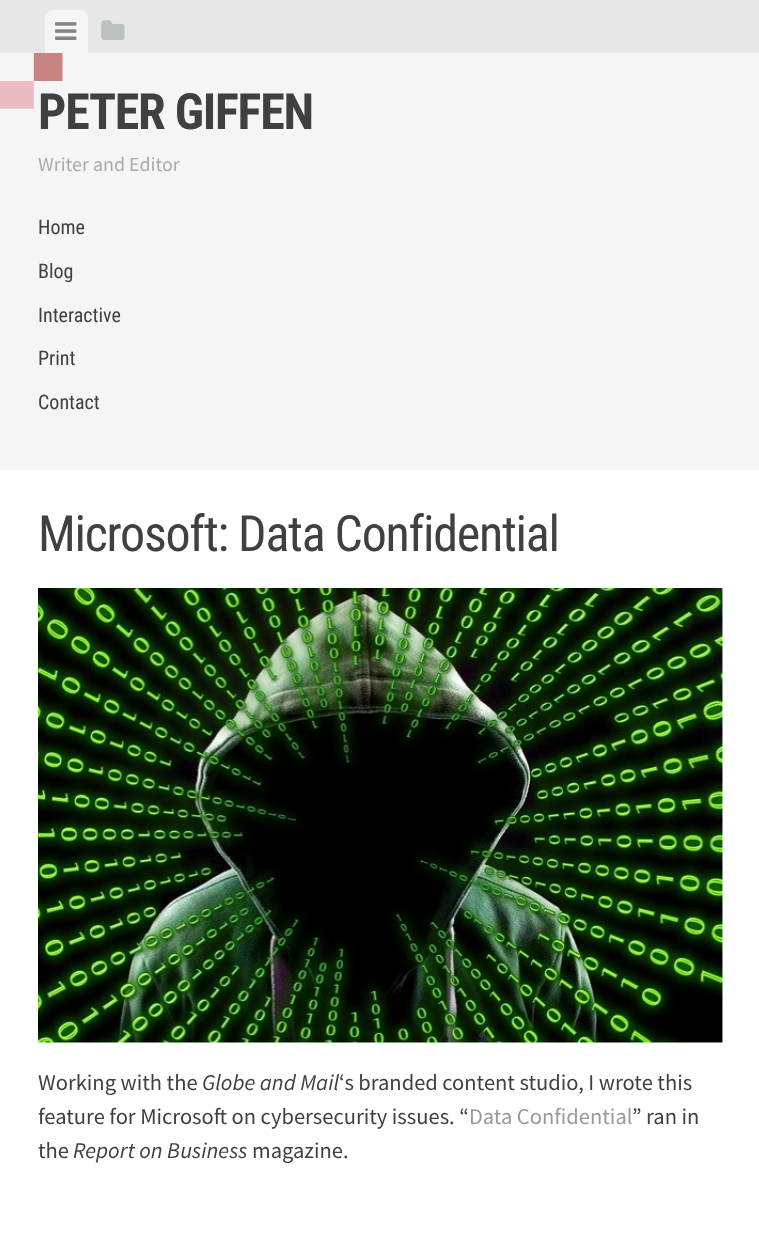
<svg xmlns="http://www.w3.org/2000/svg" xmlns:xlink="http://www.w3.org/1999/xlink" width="759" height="1239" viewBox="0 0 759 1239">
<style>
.cls-1{font:bold 50px Roboto Condensed;letter-spacing:-1.25px;fill:#404040}
.cls-2{font:20px Source Sans Pro;fill:#aaaaaa}
.cls-3{font:20px Roboto Condensed;fill:#404040}
.cls-4{font:50px Roboto Condensed;letter-spacing:-1.25px;fill:#404040}
.cls-5{font:22.5px Source Sans Pro;fill:#404040}
.cls-6{font:italic 22.5px Source Sans Pro;fill:#404040}
.cls-7{font:22.5px Source Sans Pro;fill:#999999}
</style>
<rect width="100%" height="100%" fill="#ffffff"/>
<rect fill="#f5f5f5" x="0" y="53" width="759" height="417"/>
<image xlink:href="image0.png" x="0" y="53" width="63" height="56"/>
<rect fill="#e7e7e7" x="0" y="0" width="759" height="53"/>
<path fill="#f5f5f5" d="M53 10H80C84.5 10 88 13.5 88 18V53H45V18C45 13.5 48.5 10 53 10Z"/>
<image xlink:href="image1.png" x="55" y="22" width="22" height="18"/>
<image xlink:href="image2.png" x="101" y="20" width="24" height="20"/>
<image xlink:href="image3.png" x="38" y="588" width="685" height="455"/>
<text class="cls-1" x="38" y="129">PETER GIFFEN</text>
<text class="cls-2" x="38" y="171">Writer and Editor</text>
<text class="cls-3" x="38" y="234">Home</text>
<text class="cls-3" x="38" y="278">Blog</text>
<text class="cls-3" x="38" y="322">Interactive</text>
<text class="cls-3" x="38" y="365">Print</text>
<text class="cls-3" x="38" y="409">Contact</text>
<text class="cls-4" x="38" y="551">Microsoft: Data Confidential</text>
<text class="cls-5" x="38" y="1090">Working with the</text>
<text class="cls-6" x="202" y="1090">Globe and Mail</text>
<text class="cls-5" x="339" y="1090">‘s branded content studio, I wrote this</text>
<text class="cls-5" x="38" y="1124">feature for Microsoft on cybersecurity issues. “</text>
<text class="cls-7" x="469" y="1124">Data Confidential</text>
<text class="cls-5" x="632" y="1124">” ran in</text>
<text class="cls-5" x="38" y="1158">the</text>
<text class="cls-6" x="73" y="1158">Report on Business</text>
<text class="cls-5" x="252" y="1158">magazine.</text>
</svg>
